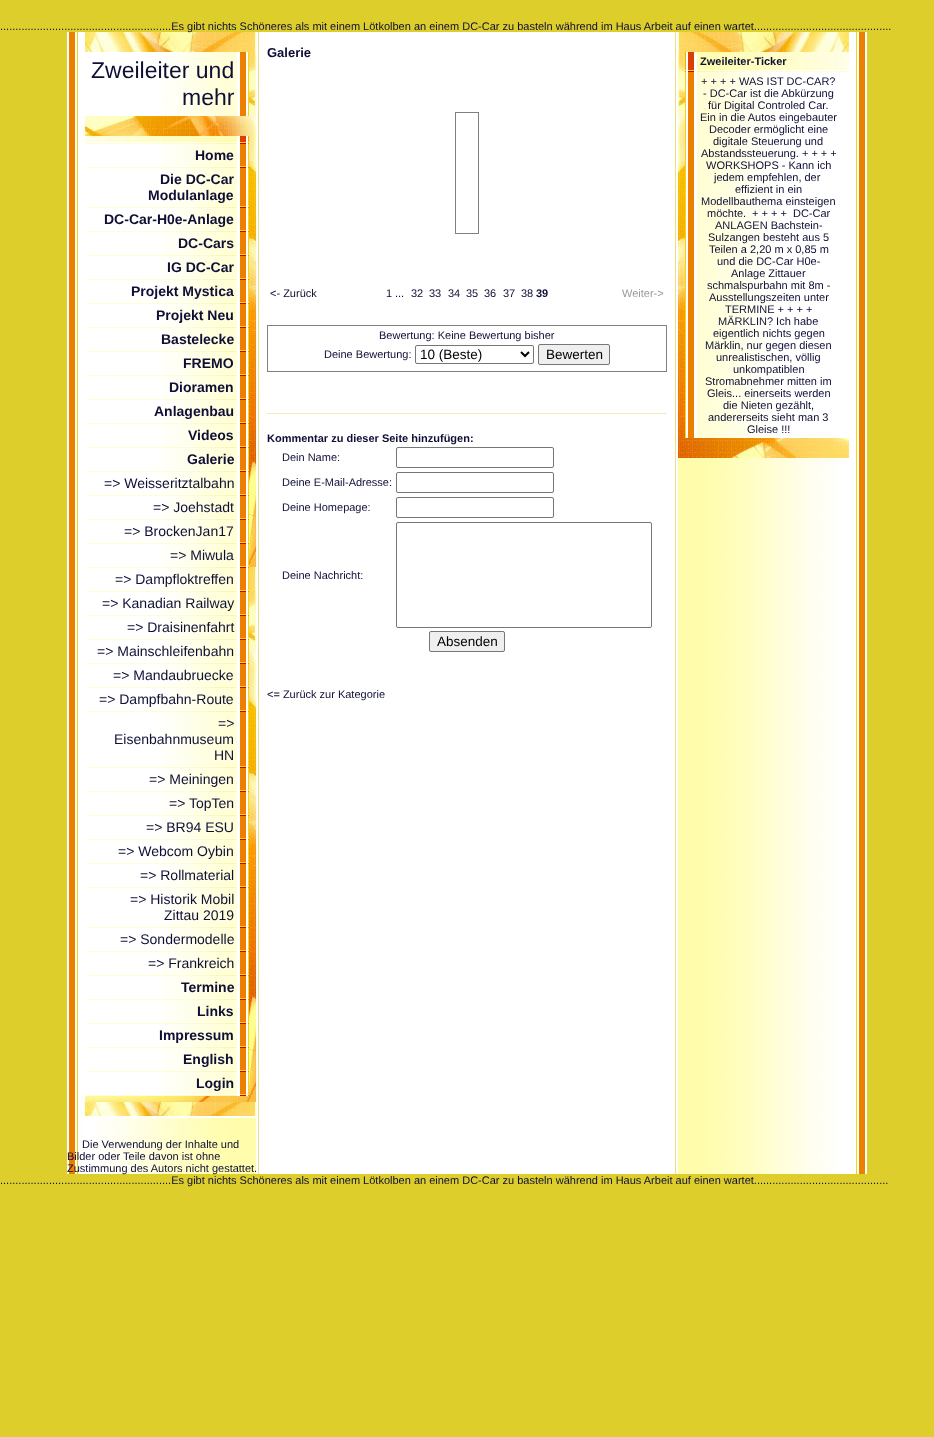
<svg xmlns="http://www.w3.org/2000/svg" xmlns:xlink="http://www.w3.org/1999/xlink" width="934" height="1437" viewBox="0 0 934 1437">
<style>
.cls-1{font:11px Liberation Sans;fill:#0e0e36}
.cls-2{font:23px Liberation Sans;fill:#0e0e36}
.cls-3{font:bold 14px Liberation Sans;fill:#0e0e36}
.cls-4{font:14px Liberation Sans;fill:#0e0e36}
.cls-5{font:bold 13px Liberation Sans;fill:#0e0e36}
.cls-6{font:bold 11px Liberation Sans;fill:#0e0e36}
.cls-7{font:11px Liberation Sans;fill:#999999}
.cls-8{font:13.5px Liberation Sans;fill:#000000}
</style>
<rect width="100%" height="100%" fill="#ddce2b"/>
<rect fill="#ffffff" x="67" y="32" width="800" height="1142"/>
<image xlink:href="image0.png" x="69" y="32" width="190" height="1142"/>
<image xlink:href="image1.png" x="83" y="32" width="176" height="1084"/>
<image xlink:href="image2.png" x="72" y="52" width="177" height="64"/>
<image xlink:href="image3.png" x="72" y="136" width="177" height="6"/>
<image xlink:href="image4.png" x="72" y="142" width="177" height="2"/>
<image xlink:href="image5.png" x="72" y="144" width="177" height="22"/>
<image xlink:href="image4.png" x="72" y="166" width="177" height="2"/>
<image xlink:href="image6.png" x="72" y="168" width="177" height="38"/>
<image xlink:href="image4.png" x="72" y="206" width="177" height="2"/>
<image xlink:href="image5.png" x="72" y="208" width="177" height="22"/>
<image xlink:href="image4.png" x="72" y="230" width="177" height="2"/>
<image xlink:href="image5.png" x="72" y="232" width="177" height="22"/>
<image xlink:href="image4.png" x="72" y="254" width="177" height="2"/>
<image xlink:href="image5.png" x="72" y="256" width="177" height="22"/>
<image xlink:href="image4.png" x="72" y="278" width="177" height="2"/>
<image xlink:href="image5.png" x="72" y="280" width="177" height="22"/>
<image xlink:href="image4.png" x="72" y="302" width="177" height="2"/>
<image xlink:href="image5.png" x="72" y="304" width="177" height="22"/>
<image xlink:href="image4.png" x="72" y="326" width="177" height="2"/>
<image xlink:href="image5.png" x="72" y="328" width="177" height="22"/>
<image xlink:href="image4.png" x="72" y="350" width="177" height="2"/>
<image xlink:href="image5.png" x="72" y="352" width="177" height="22"/>
<image xlink:href="image4.png" x="72" y="374" width="177" height="2"/>
<image xlink:href="image5.png" x="72" y="376" width="177" height="22"/>
<image xlink:href="image4.png" x="72" y="398" width="177" height="2"/>
<image xlink:href="image5.png" x="72" y="400" width="177" height="22"/>
<image xlink:href="image4.png" x="72" y="422" width="177" height="2"/>
<image xlink:href="image5.png" x="72" y="424" width="177" height="22"/>
<image xlink:href="image4.png" x="72" y="446" width="177" height="2"/>
<image xlink:href="image5.png" x="72" y="448" width="177" height="22"/>
<image xlink:href="image4.png" x="72" y="470" width="177" height="2"/>
<image xlink:href="image5.png" x="72" y="472" width="177" height="22"/>
<image xlink:href="image4.png" x="72" y="494" width="177" height="2"/>
<image xlink:href="image5.png" x="72" y="496" width="177" height="22"/>
<image xlink:href="image4.png" x="72" y="518" width="177" height="2"/>
<image xlink:href="image5.png" x="72" y="520" width="177" height="22"/>
<image xlink:href="image4.png" x="72" y="542" width="177" height="2"/>
<image xlink:href="image5.png" x="72" y="544" width="177" height="22"/>
<image xlink:href="image4.png" x="72" y="566" width="177" height="2"/>
<image xlink:href="image5.png" x="72" y="568" width="177" height="22"/>
<image xlink:href="image4.png" x="72" y="590" width="177" height="2"/>
<image xlink:href="image5.png" x="72" y="592" width="177" height="22"/>
<image xlink:href="image4.png" x="72" y="614" width="177" height="2"/>
<image xlink:href="image5.png" x="72" y="616" width="177" height="22"/>
<image xlink:href="image4.png" x="72" y="638" width="177" height="2"/>
<image xlink:href="image5.png" x="72" y="640" width="177" height="22"/>
<image xlink:href="image4.png" x="72" y="662" width="177" height="2"/>
<image xlink:href="image5.png" x="72" y="664" width="177" height="22"/>
<image xlink:href="image4.png" x="72" y="686" width="177" height="2"/>
<image xlink:href="image5.png" x="72" y="688" width="177" height="22"/>
<image xlink:href="image4.png" x="72" y="710" width="177" height="2"/>
<image xlink:href="image7.png" x="72" y="712" width="177" height="54"/>
<image xlink:href="image4.png" x="72" y="766" width="177" height="2"/>
<image xlink:href="image5.png" x="72" y="768" width="177" height="22"/>
<image xlink:href="image4.png" x="72" y="790" width="177" height="2"/>
<image xlink:href="image5.png" x="72" y="792" width="177" height="22"/>
<image xlink:href="image4.png" x="72" y="814" width="177" height="2"/>
<image xlink:href="image5.png" x="72" y="816" width="177" height="22"/>
<image xlink:href="image4.png" x="72" y="838" width="177" height="2"/>
<image xlink:href="image5.png" x="72" y="840" width="177" height="22"/>
<image xlink:href="image4.png" x="72" y="862" width="177" height="2"/>
<image xlink:href="image5.png" x="72" y="864" width="177" height="22"/>
<image xlink:href="image4.png" x="72" y="886" width="177" height="2"/>
<image xlink:href="image6.png" x="72" y="888" width="177" height="38"/>
<image xlink:href="image4.png" x="72" y="926" width="177" height="2"/>
<image xlink:href="image5.png" x="72" y="928" width="177" height="22"/>
<image xlink:href="image4.png" x="72" y="950" width="177" height="2"/>
<image xlink:href="image5.png" x="72" y="952" width="177" height="22"/>
<image xlink:href="image4.png" x="72" y="974" width="177" height="2"/>
<image xlink:href="image5.png" x="72" y="976" width="177" height="22"/>
<image xlink:href="image4.png" x="72" y="998" width="177" height="2"/>
<image xlink:href="image5.png" x="72" y="1000" width="177" height="22"/>
<image xlink:href="image4.png" x="72" y="1022" width="177" height="2"/>
<image xlink:href="image5.png" x="72" y="1024" width="177" height="22"/>
<image xlink:href="image4.png" x="72" y="1046" width="177" height="2"/>
<image xlink:href="image5.png" x="72" y="1048" width="177" height="22"/>
<image xlink:href="image4.png" x="72" y="1070" width="177" height="2"/>
<image xlink:href="image5.png" x="72" y="1072" width="177" height="22"/>
<image xlink:href="image4.png" x="72" y="1094" width="177" height="2"/>
<image xlink:href="image8.png" x="103" y="1116" width="156" height="8"/>
<rect fill="none" stroke="#808080" x="455.5" y="112.5" width="23" height="121"/>
<rect fill="none" stroke="#808080" x="267.5" y="325.5" width="399" height="46"/>
<rect fill="none" stroke="#767676" x="415.5" y="345.5" width="118" height="18" rx="1.5"/>
<path fill="none" stroke="#000000" stroke-width="2" d="M521 352L525 356L529 352"/>
<rect fill="#efefef" stroke="#767676" x="538.5" y="344.5" width="71" height="20" rx="1.5"/>
<rect fill="#f5ebb7" x="267" y="413" width="400" height="1"/>
<rect fill="none" stroke="#767676" x="396.5" y="447.5" width="157" height="20" rx="1.5"/>
<rect fill="none" stroke="#767676" x="396.5" y="472.5" width="157" height="20" rx="1.5"/>
<rect fill="none" stroke="#767676" x="396.5" y="497.5" width="157" height="20" rx="1.5"/>
<rect fill="none" stroke="#767676" x="396.5" y="522.5" width="255" height="105" rx="1.5"/>
<rect fill="#efefef" stroke="#767676" x="429.5" y="631.5" width="75" height="20" rx="1.5"/>
<image xlink:href="image9.png" x="675" y="32" width="190" height="1142"/>
<image xlink:href="image10.png" x="675" y="32" width="176" height="426"/>
<image xlink:href="image11.png" x="685" y="52" width="177" height="18"/>
<image xlink:href="image12.png" x="685" y="70" width="177" height="2"/>
<image xlink:href="image13.png" x="685" y="72" width="177" height="366"/>
<text class="cls-1" x="0" y="30">........................................................Es gibt nichts Schöneres als mit einem Lötkolben an einem DC-Car zu basteln während im Haus Arbeit auf einen wartet.............................................</text>
<text class="cls-2" x="91" y="78">Zweileiter und</text>
<text class="cls-2" x="182" y="105">mehr</text>
<text class="cls-3" x="195" y="160">Home</text>
<text class="cls-3" x="160" y="184">Die DC-Car</text>
<text class="cls-3" x="148" y="200">Modulanlage</text>
<text class="cls-3" x="104" y="224">DC-Car-H0e-Anlage</text>
<text class="cls-3" x="178" y="248">DC-Cars</text>
<text class="cls-3" x="167" y="272">IG DC-Car</text>
<text class="cls-3" x="131" y="296">Projekt Mystica</text>
<text class="cls-3" x="156" y="320">Projekt Neu</text>
<text class="cls-3" x="161" y="344">Bastelecke</text>
<text class="cls-3" x="183" y="368">FREMO</text>
<text class="cls-3" x="169" y="392">Dioramen</text>
<text class="cls-3" x="154" y="416">Anlagenbau</text>
<text class="cls-3" x="188" y="440">Videos</text>
<text class="cls-3" x="187" y="464">Galerie</text>
<text class="cls-4" x="104" y="488">=&gt; Weisseritztalbahn</text>
<text class="cls-4" x="153" y="512">=&gt; Joehstadt</text>
<text class="cls-4" x="124" y="536">=&gt; BrockenJan17</text>
<text class="cls-4" x="170" y="560">=&gt; Miwula</text>
<text class="cls-4" x="115" y="584">=&gt; Dampfloktreffen</text>
<text class="cls-4" x="102" y="608">=&gt; Kanadian Railway</text>
<text class="cls-4" x="127" y="632">=&gt; Draisinenfahrt</text>
<text class="cls-4" x="97" y="656">=&gt; Mainschleifenbahn</text>
<text class="cls-4" x="113" y="680">=&gt; Mandaubruecke</text>
<text class="cls-4" x="99" y="704">=&gt; Dampfbahn-Route</text>
<text class="cls-4" x="218" y="728">=&gt;</text>
<text class="cls-4" x="114" y="744">Eisenbahnmuseum</text>
<text class="cls-4" x="214" y="760">HN</text>
<text class="cls-4" x="149" y="784">=&gt; Meiningen</text>
<text class="cls-4" x="169" y="808">=&gt; TopTen</text>
<text class="cls-4" x="146" y="832">=&gt; BR94 ESU</text>
<text class="cls-4" x="118" y="856">=&gt; Webcom Oybin</text>
<text class="cls-4" x="140" y="880">=&gt; Rollmaterial</text>
<text class="cls-4" x="130" y="904">=&gt; Historik Mobil</text>
<text class="cls-4" x="164" y="920">Zittau 2019</text>
<text class="cls-4" x="120" y="944">=&gt; Sondermodelle</text>
<text class="cls-4" x="148" y="968">=&gt; Frankreich</text>
<text class="cls-3" x="181" y="992">Termine</text>
<text class="cls-3" x="197" y="1016">Links</text>
<text class="cls-3" x="159" y="1040">Impressum</text>
<text class="cls-3" x="183" y="1064">English</text>
<text class="cls-3" x="196" y="1088">Login</text>
<text class="cls-1" x="82" y="1148">Die Verwendung der Inhalte und</text>
<text class="cls-1"><tspan x="67" y="1160">Bilder oder Teile davon ist ohne</tspan><tspan x="67" y="1172">Zustimmung des Autors nicht gestattet.</tspan></text>
<text class="cls-5" x="267" y="57">Galerie</text>
<text class="cls-1" x="270" y="297">&lt;- Zurück</text>
<text class="cls-1" x="386" y="297">1</text>
<text class="cls-1" x="395" y="297">...</text>
<text class="cls-1" x="411" y="297">32</text>
<text class="cls-1" x="429" y="297">33</text>
<text class="cls-1" x="448" y="297">34</text>
<text class="cls-1" x="466" y="297">35</text>
<text class="cls-1" x="484" y="297">36</text>
<text class="cls-1" x="503" y="297">37</text>
<text class="cls-1" x="521" y="297">38</text>
<text class="cls-6" x="536" y="297">39</text>
<text class="cls-7" x="622" y="297">Weiter-&gt;</text>
<text class="cls-1" x="379" y="339">Bewertung: Keine Bewertung bisher</text>
<text class="cls-1" x="324" y="358">Deine Bewertung:</text>
<text class="cls-8" x="420" y="359">10 (Beste)</text>
<text class="cls-8" x="546" y="359">Bewerten</text>
<text class="cls-6" x="267" y="442">Kommentar zu dieser Seite hinzufügen:</text>
<text class="cls-1" x="282" y="461">Dein Name:</text>
<text class="cls-1" x="282" y="486">Deine E-Mail-Adresse:</text>
<text class="cls-1" x="282" y="511">Deine Homepage:</text>
<text class="cls-1" x="282" y="579">Deine Nachricht:</text>
<text class="cls-8" x="437" y="646">Absenden</text>
<text class="cls-1" x="267" y="698">&lt;= Zurück zur Kategorie</text>
<text class="cls-6" x="700" y="65">Zweileiter-Ticker</text>
<text class="cls-1" x="701" y="85">+ + + + WAS IST DC-CAR?</text>
<text class="cls-1" x="703" y="97">- DC-Car ist die Abkürzung</text>
<text class="cls-1" x="708" y="109">für Digital Controled Car.</text>
<text class="cls-1" x="700" y="121">Ein in die Autos eingebauter</text>
<text class="cls-1" x="709" y="133">Decoder ermöglicht eine</text>
<text class="cls-1" x="713" y="145">digitale Steuerung und</text>
<text class="cls-1" x="701" y="157">Abstandssteuerung. + + + +</text>
<text class="cls-1" x="706" y="169">WORKSHOPS - Kann ich</text>
<text class="cls-1" x="714" y="181">jedem empfehlen, der</text>
<text class="cls-1" x="735" y="193">effizient in ein</text>
<text class="cls-1" x="701" y="205">Modellbauthema einsteigen</text>
<text class="cls-1" x="707" y="217">möchte.</text>
<text class="cls-1" xml:space="preserve" x="752" y="217">+ + + +  DC-Car</text>
<text class="cls-1" x="715" y="229">ANLAGEN Bachstein-</text>
<text class="cls-1" x="708" y="241">Sulzangen besteht aus 5</text>
<text class="cls-1" x="709" y="253">Teilen a 2,20 m x 0,85 m</text>
<text class="cls-1" x="717" y="265">und die DC-Car H0e-</text>
<text class="cls-1" x="731" y="277">Anlage Zittauer</text>
<text class="cls-1" x="707" y="289">schmalspurbahn mit 8m -</text>
<text class="cls-1" x="709" y="301">Ausstellungszeiten unter</text>
<text class="cls-1" x="725" y="313">TERMINE + + + +</text>
<text class="cls-1" x="718" y="325">MÄRKLIN? Ich habe</text>
<text class="cls-1" x="713" y="337">eigentlich nichts gegen</text>
<text class="cls-1" x="705" y="349">Märklin, nur gegen diesen</text>
<text class="cls-1" x="716" y="361">unrealistischen, völlig</text>
<text class="cls-1" x="733" y="373">unkompatiblen</text>
<text class="cls-1" x="705" y="385">Stromabnehmer mitten im</text>
<text class="cls-1" x="707" y="397">Gleis... einerseits werden</text>
<text class="cls-1" x="723" y="409">die Nieten gezählt,</text>
<text class="cls-1" x="708" y="421">andererseits sieht man 3</text>
<text class="cls-1" x="747" y="433">Gleise !!!</text>
<text class="cls-1" x="0" y="1184">........................................................Es gibt nichts Schöneres als mit einem Lötkolben an einem DC-Car zu basteln während im Haus Arbeit auf einen wartet............................................</text>
</svg>
